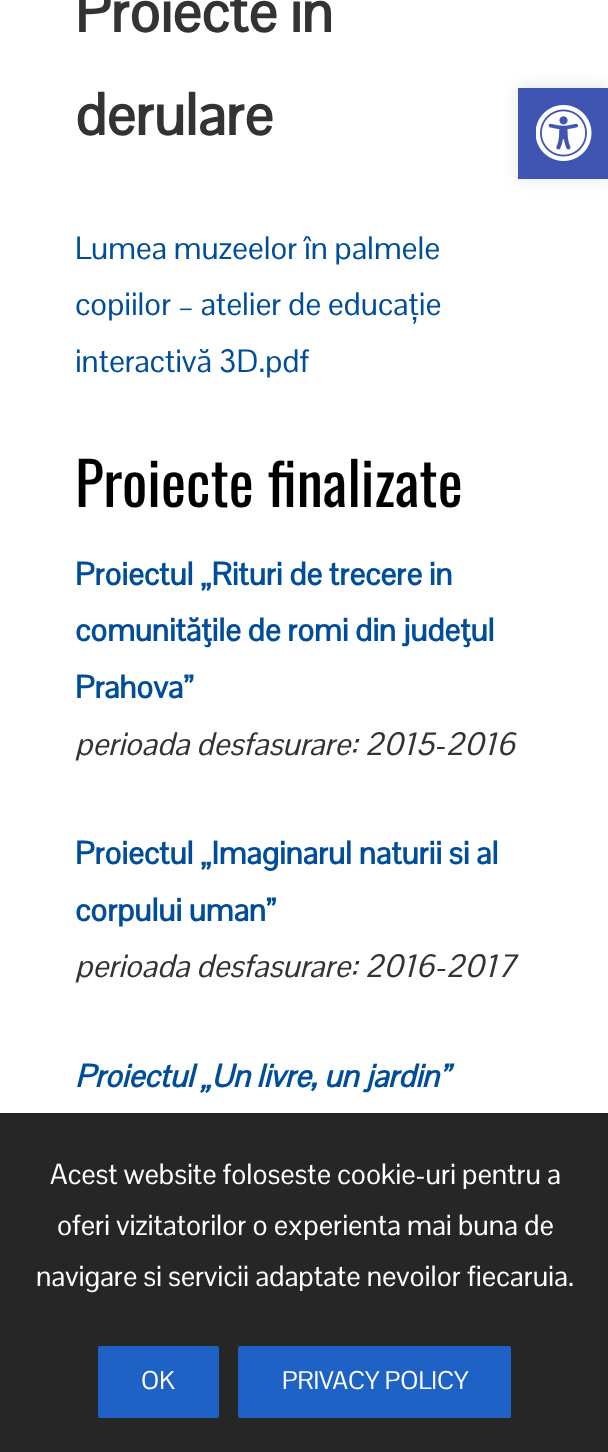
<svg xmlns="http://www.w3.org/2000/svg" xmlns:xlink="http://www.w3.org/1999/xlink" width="608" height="1452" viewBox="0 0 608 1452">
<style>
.cls-1{font:bold 57.75px Pontano Sans;fill:#333333}
.cls-2{font:31.5px Pontano Sans;fill:#004d99}
.cls-3{font:59.5px Oswald;fill:#000000}
.cls-4{font:bold 31.5px Pontano Sans;fill:#004d99}
.cls-5{font:italic 31.5px Pontano Sans;fill:#333333}
.cls-6{font:italic bold 31.5px Pontano Sans;fill:#004d99}
.cls-7{font:28.4px Pontano Sans;fill:#ffffff}
.cls-8{font:25px Pontano Sans;fill:#ffffff}
</style>
<rect width="100%" height="100%" fill="#ffffff"/>
<rect fill="#000000" fill-opacity="0.1" filter="blur(9px)" x="518" y="88" width="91" height="91"/>
<rect fill="#4054b2" x="518" y="88" width="90" height="91"/>
<image xlink:href="image0.png" x="536" y="105" width="56" height="56"/>
<rect fill="#262626" x="0" y="1113" width="608" height="339"/>
<rect fill="#1f62c6" x="98" y="1346" width="121" height="72" rx="2"/>
<rect fill="#1f62c6" x="238" y="1346" width="273" height="72" rx="2"/>
<text class="cls-1"><tspan x="75" y="32">Proiecte in</tspan><tspan x="75" y="135">derulare</tspan></text>
<text class="cls-2"><tspan x="75" y="259">Lumea muzeelor în palmele</tspan><tspan x="75" y="315">copiilor – atelier de educație</tspan><tspan x="75" y="372">interactivă 3D.pdf</tspan></text>
<text class="cls-3" x="75" y="507">Proiecte finalizate</text>
<text class="cls-4"><tspan x="75" y="585">Proiectul „Rituri de trecere in</tspan><tspan x="75" y="641">comunităţile de romi din judeţul</tspan><tspan x="75" y="698">Prahova”</tspan></text>
<text class="cls-5" x="75" y="755">perioada desfasurare: 2015-2016</text>
<text class="cls-4"><tspan x="75" y="864">Proiectul „Imaginarul naturii si al</tspan><tspan x="75" y="921">corpului uman”</tspan></text>
<text class="cls-5" x="75" y="977">perioada desfasurare: 2016-2017</text>
<text class="cls-6" x="75" y="1087">Proiectul „Un livre, un jardin”</text>
<text class="cls-7" x="50" y="1184">Acest website foloseste cookie-uri pentru a</text>
<text class="cls-7" x="57" y="1235">oferi vizitatorilor o experienta mai buna de</text>
<text class="cls-7" x="36" y="1286">navigare si servicii adaptate nevoilor fiecaruia.</text>
<text class="cls-8" x="141" y="1389">OK</text>
<text class="cls-8" x="282" y="1389">PRIVACY POLICY</text>
</svg>
